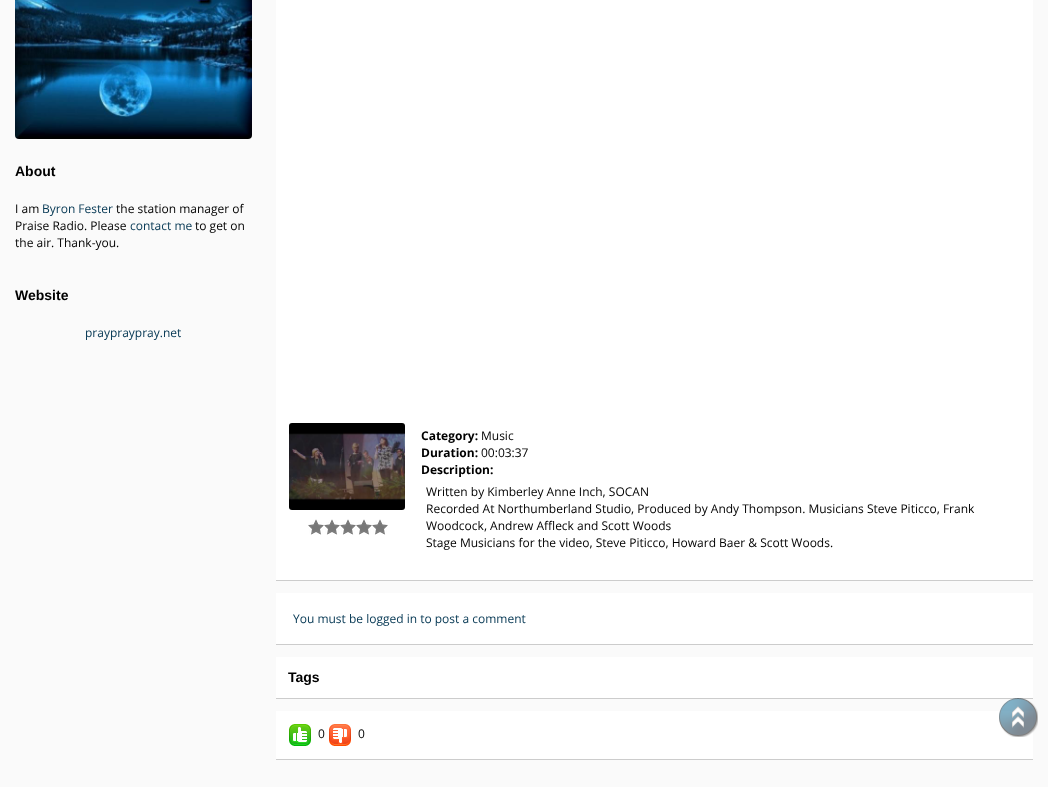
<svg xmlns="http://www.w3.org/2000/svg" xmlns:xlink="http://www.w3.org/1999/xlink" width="1048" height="787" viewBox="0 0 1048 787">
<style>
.cls-1{font:bold 14px Liberation Sans;fill:#000000}
.cls-2{font:12px Open Sans;fill:#000000}
.cls-3{font:12px Open Sans;fill:#033652}
.cls-4{font:bold 12px Open Sans;fill:#000000}
</style>
<rect width="100%" height="100%" fill="#fafafa"/>
<image xlink:href="image0.png" x="15" y="0" width="237" height="139"/>
<rect fill="#ffffff" x="276" y="0" width="757" height="580"/>
<rect fill="#cccccc" x="276" y="580" width="757" height="1"/>
<image xlink:href="image1.png" x="289" y="423" width="116" height="87"/>
<image xlink:href="image2.png" x="308" y="519" width="80" height="16"/>
<rect fill="#ffffff" x="276" y="593" width="757" height="51"/>
<rect fill="#cccccc" x="276" y="644" width="757" height="1"/>
<rect fill="#ffffff" x="276" y="657" width="757" height="41"/>
<rect fill="#cccccc" x="276" y="698" width="757" height="1"/>
<rect fill="#ffffff" x="276" y="711" width="757" height="48"/>
<rect fill="#cccccc" x="276" y="759" width="757" height="1"/>
<image xlink:href="image3.png" x="289" y="724" width="22" height="22"/>
<image xlink:href="image4.png" x="329" y="724" width="22" height="22"/>
<image xlink:href="image5.png" x="999" y="698" width="39" height="39"/>
<text class="cls-1" x="15" y="176">About</text>
<text class="cls-2" x="15" y="213">I am</text>
<text class="cls-3" x="42" y="213">Byron Fester</text>
<text class="cls-2" x="116" y="213">the station manager of</text>
<text class="cls-2" x="15" y="230">Praise Radio. Please</text>
<text class="cls-3" x="130" y="230">contact me</text>
<text class="cls-2" x="195" y="230">to get on</text>
<text class="cls-2" x="15" y="247">the air. Thank-you.</text>
<text class="cls-1" x="15" y="300">Website</text>
<text class="cls-3" x="85" y="337">praypraypray.net</text>
<text class="cls-4" x="421" y="440">Category:</text>
<text class="cls-2" x="481" y="440">Music</text>
<text class="cls-4" x="421" y="457">Duration:</text>
<text class="cls-2" x="481" y="457">00:03:37</text>
<text class="cls-4" x="421" y="474">Description:</text>
<text class="cls-2"><tspan x="426" y="496">Written by Kimberley Anne Inch, SOCAN</tspan><tspan x="426" y="513">Recorded At Northumberland Studio, Produced by Andy Thompson. Musicians Steve Piticco, Frank</tspan><tspan x="426" y="530">Woodcock, Andrew Affleck and Scott Woods</tspan><tspan x="426" y="547">Stage Musicians for the video, Steve Piticco, Howard Baer &amp; Scott Woods.</tspan></text>
<text class="cls-3" x="293" y="623">You must be logged in to post a comment</text>
<text class="cls-1" x="288" y="682">Tags</text>
<text class="cls-2" x="318" y="738">0</text>
<text class="cls-2" x="358" y="738">0</text>
</svg>
